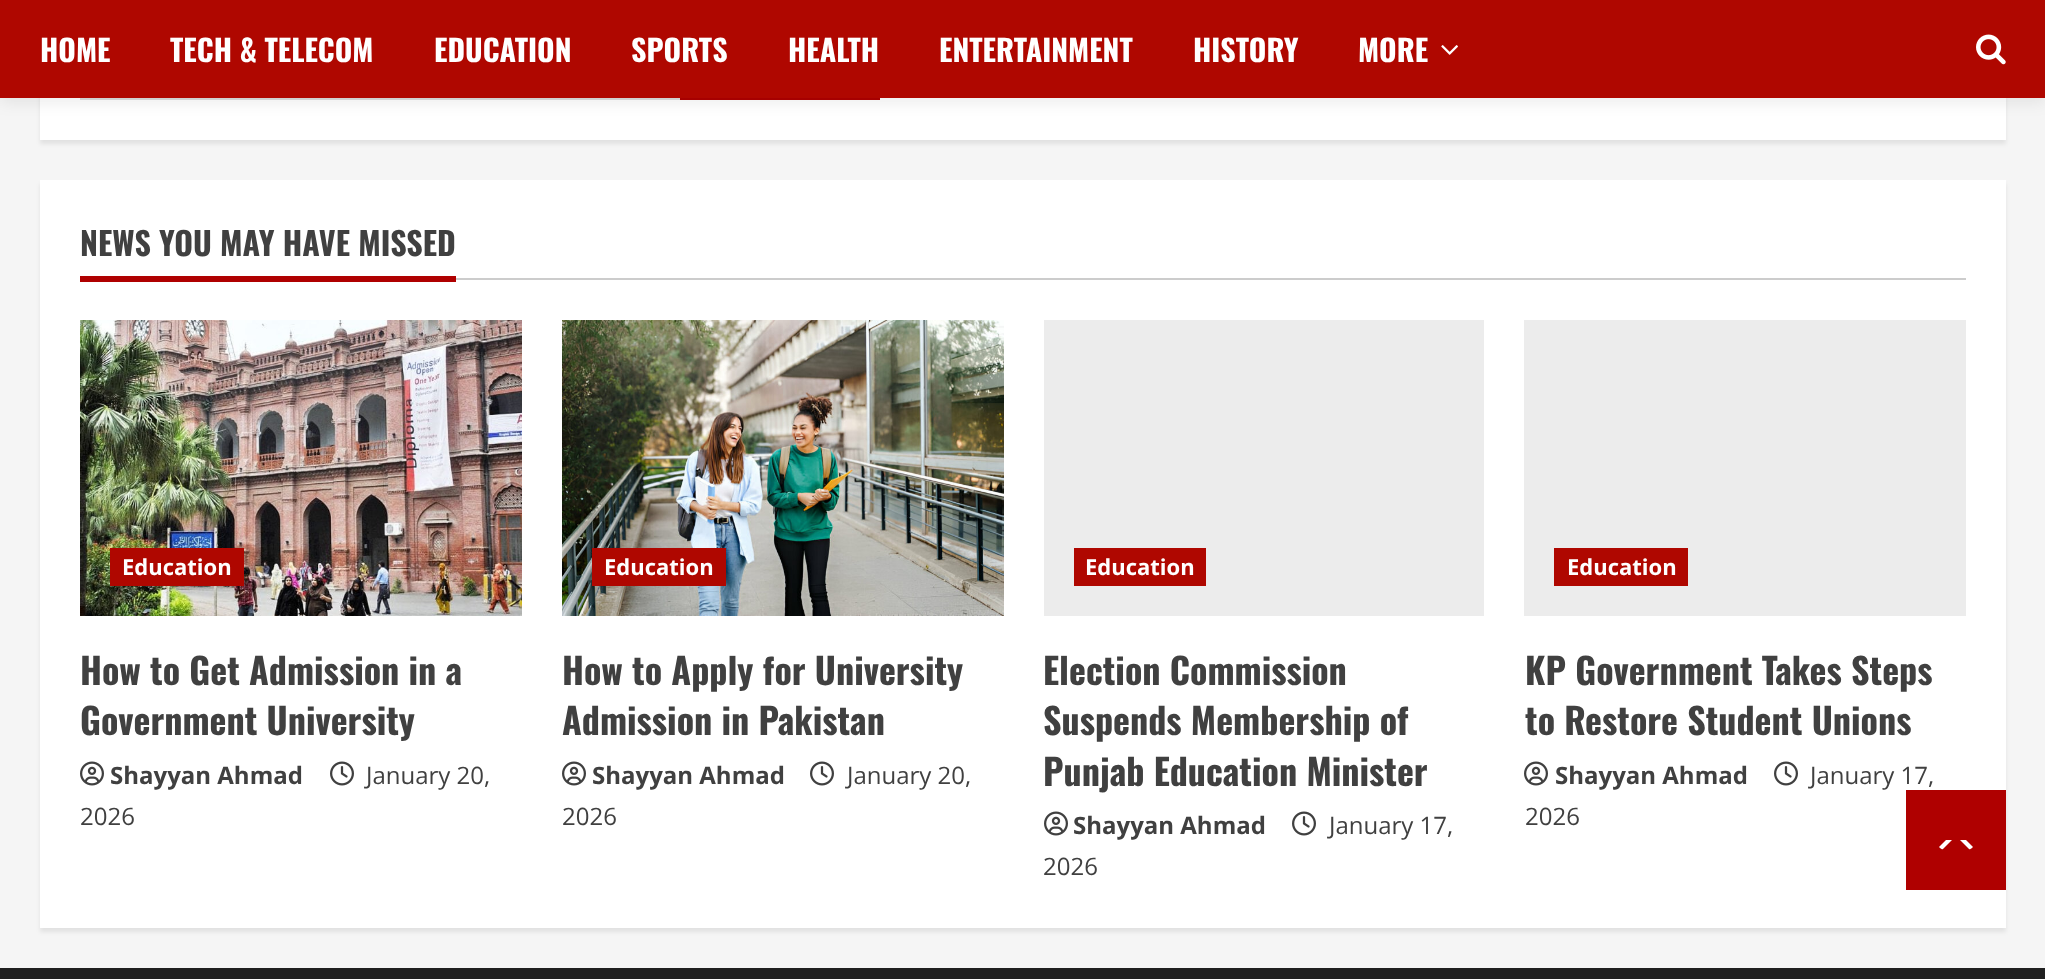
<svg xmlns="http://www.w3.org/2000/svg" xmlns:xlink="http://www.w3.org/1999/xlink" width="2045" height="979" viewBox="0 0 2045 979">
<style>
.cls-1{font:bold 30px Oswald;fill:#ffffff}
.cls-2{font:bold 32px Oswald;fill:#404040}
.cls-3{font:bold 22px Open Sans;fill:#ffffff}
.cls-4{font:bold 36px Oswald;fill:#404040}
.cls-5{font:bold 24px Open Sans;fill:#404040}
.cls-6{font:24px Open Sans;fill:#404040}
</style>
<rect width="100%" height="100%" fill="#f5f5f5"/>
<rect fill="#000000" fill-opacity="0.08" filter="blur(2px)" x="40" y="-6" width="1966" height="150"/>
<rect fill="#ffffff" x="40" y="98" width="1966" height="42"/>
<rect fill="none" stroke="#dcdcdc" stroke-width="2" x="81" y="25" width="598" height="74"/>
<rect fill="#af0000" x="680" y="98" width="200" height="2"/>
<rect fill="#000000" fill-opacity="0.08" filter="blur(8px)" x="0" y="4" width="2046" height="98"/>
<rect fill="#af0700" x="0" y="0" width="2045" height="98"/>
<image xlink:href="image0.png" x="1441" y="45" width="17" height="10"/>
<image xlink:href="image1.png" x="1976" y="34" width="30" height="31"/>
<rect fill="#000000" fill-opacity="0.08" filter="blur(2px)" x="40" y="184" width="1966" height="748"/>
<rect fill="#ffffff" x="40" y="180" width="1966" height="748"/>
<rect fill="#cccccc" x="456" y="278" width="1510" height="2"/>
<rect fill="#af0000" x="80" y="276" width="376" height="6"/>
<image xlink:href="image2.png" x="80" y="320" width="442" height="296"/>
<rect fill="#af0700" x="110" y="548" width="134" height="38"/>
<image xlink:href="image3.png" x="80" y="761" width="24" height="25"/>
<image xlink:href="image4.png" x="330" y="761" width="24" height="25"/>
<image xlink:href="image5.png" x="562" y="320" width="442" height="296"/>
<rect fill="#af0700" x="592" y="548" width="134" height="38"/>
<image xlink:href="image3.png" x="562" y="761" width="24" height="25"/>
<image xlink:href="image4.png" x="810" y="761" width="24" height="25"/>
<rect fill="#ececec" x="1044" y="320" width="440" height="296"/>
<rect fill="#af0700" x="1074" y="548" width="132" height="38"/>
<image xlink:href="image3.png" x="1044" y="811" width="24" height="25"/>
<image xlink:href="image4.png" x="1292" y="811" width="24" height="25"/>
<rect fill="#ececec" x="1524" y="320" width="442" height="296"/>
<rect fill="#af0700" x="1554" y="548" width="134" height="38"/>
<image xlink:href="image3.png" x="1524" y="761" width="24" height="25"/>
<image xlink:href="image4.png" x="1774" y="761" width="24" height="25"/>
<rect fill="#202020" x="0" y="968" width="2045" height="11"/>
<rect fill="#af0000" x="1906" y="790" width="100" height="100"/>
<path fill="#ffffff" d="M1946 850H1966C1969 850 1971.5 849 1973 847L1966 840H1946L1939 847C1940.5 849 1943 850 1946 850Z"/>
<path fill="#af0000" d="M1976 856H1936L1956 836Z"/>
<text class="cls-1" x="40" y="62">HOME</text>
<text class="cls-1" x="170" y="62">TECH &amp; TELECOM</text>
<text class="cls-1" x="434" y="62">EDUCATION</text>
<text class="cls-1" x="631" y="62">SPORTS</text>
<text class="cls-1" x="788" y="62">HEALTH</text>
<text class="cls-1" x="939" y="62">ENTERTAINMENT</text>
<text class="cls-1" x="1193" y="62">HISTORY</text>
<text class="cls-1" x="1358" y="62">MORE</text>
<text class="cls-2" x="80" y="256">NEWS YOU MAY HAVE MISSED</text>
<text class="cls-3" x="122" y="575">Education</text>
<text class="cls-4"><tspan x="80" y="685">How to Get Admission in a</tspan><tspan x="80" y="735">Government University</tspan></text>
<text class="cls-5" x="110" y="784">Shayyan Ahmad</text>
<text class="cls-6" x="366" y="784">January 20,</text>
<text class="cls-6" x="80" y="825">2026</text>
<text class="cls-3" x="604" y="575">Education</text>
<text class="cls-4"><tspan x="562" y="685">How to Apply for University</tspan><tspan x="562" y="735">Admission in Pakistan</tspan></text>
<text class="cls-5" x="592" y="784">Shayyan Ahmad</text>
<text class="cls-6" x="847" y="784">January 20,</text>
<text class="cls-6" x="562" y="825">2026</text>
<text class="cls-3" x="1085" y="575">Education</text>
<text class="cls-4"><tspan x="1043" y="685">Election Commission</tspan><tspan x="1043" y="735">Suspends Membership of</tspan><tspan x="1043" y="786">Punjab Education Minister</tspan></text>
<text class="cls-5" x="1073" y="834">Shayyan Ahmad</text>
<text class="cls-6" x="1329" y="834">January 17,</text>
<text class="cls-6" x="1043" y="875">2026</text>
<text class="cls-3" x="1567" y="575">Education</text>
<text class="cls-4"><tspan x="1525" y="685">KP Government Takes Steps</tspan><tspan x="1525" y="735">to Restore Student Unions</tspan></text>
<text class="cls-5" x="1555" y="784">Shayyan Ahmad</text>
<text class="cls-6" x="1810" y="784">January 17,</text>
<text class="cls-6" x="1525" y="825">2026</text>
</svg>
